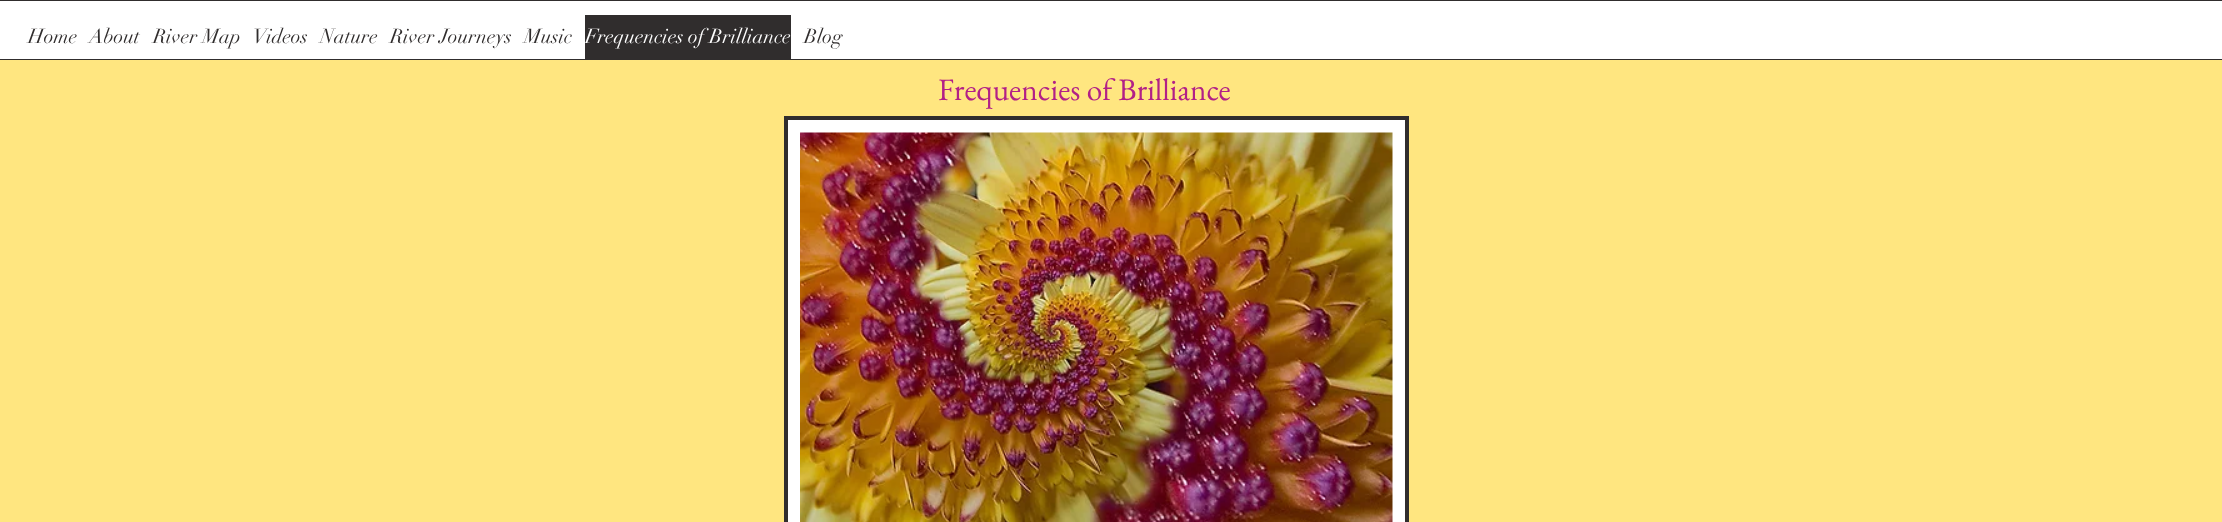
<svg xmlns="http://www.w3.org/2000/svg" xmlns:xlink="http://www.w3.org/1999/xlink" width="2222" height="522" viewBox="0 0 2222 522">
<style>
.cls-1{font:20px didot;fill:#302d2d}
.cls-2{font:20px didot;fill:#ffffff}
.cls-3{font:31.25px EB Garamond;fill:#b22087}
</style>
<rect width="100%" height="100%" fill="#ffe680"/>
<rect fill="#302d2d" x="0" y="0" width="2222" height="1"/>
<rect fill="#302d2d" x="0" y="59" width="2222" height="1"/>
<rect fill="#ffffff" x="0" y="1" width="2222" height="58"/>
<rect fill="#302d2d" x="585" y="15" width="206" height="44"/>
<rect fill="#ffffff" stroke="#302d2d" stroke-width="4" x="786" y="118" width="621" height="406"/>
<image xlink:href="image0.png" x="800" y="132" width="593" height="390"/>
<text class="cls-1" x="28" y="43">Home</text>
<text class="cls-1" x="89" y="43">About</text>
<text class="cls-1" x="153" y="43">River Map</text>
<text class="cls-1" x="253" y="43">Videos</text>
<text class="cls-1" x="320" y="43">Nature</text>
<text class="cls-1" x="390" y="43">River Journeys</text>
<text class="cls-1" x="524" y="43">Music</text>
<text class="cls-2" x="585" y="43">Frequencies of Brilliance</text>
<text class="cls-1" x="804" y="43">Blog</text>
<text class="cls-3" x="938" y="100">Frequencies of Brilliance</text>
</svg>
